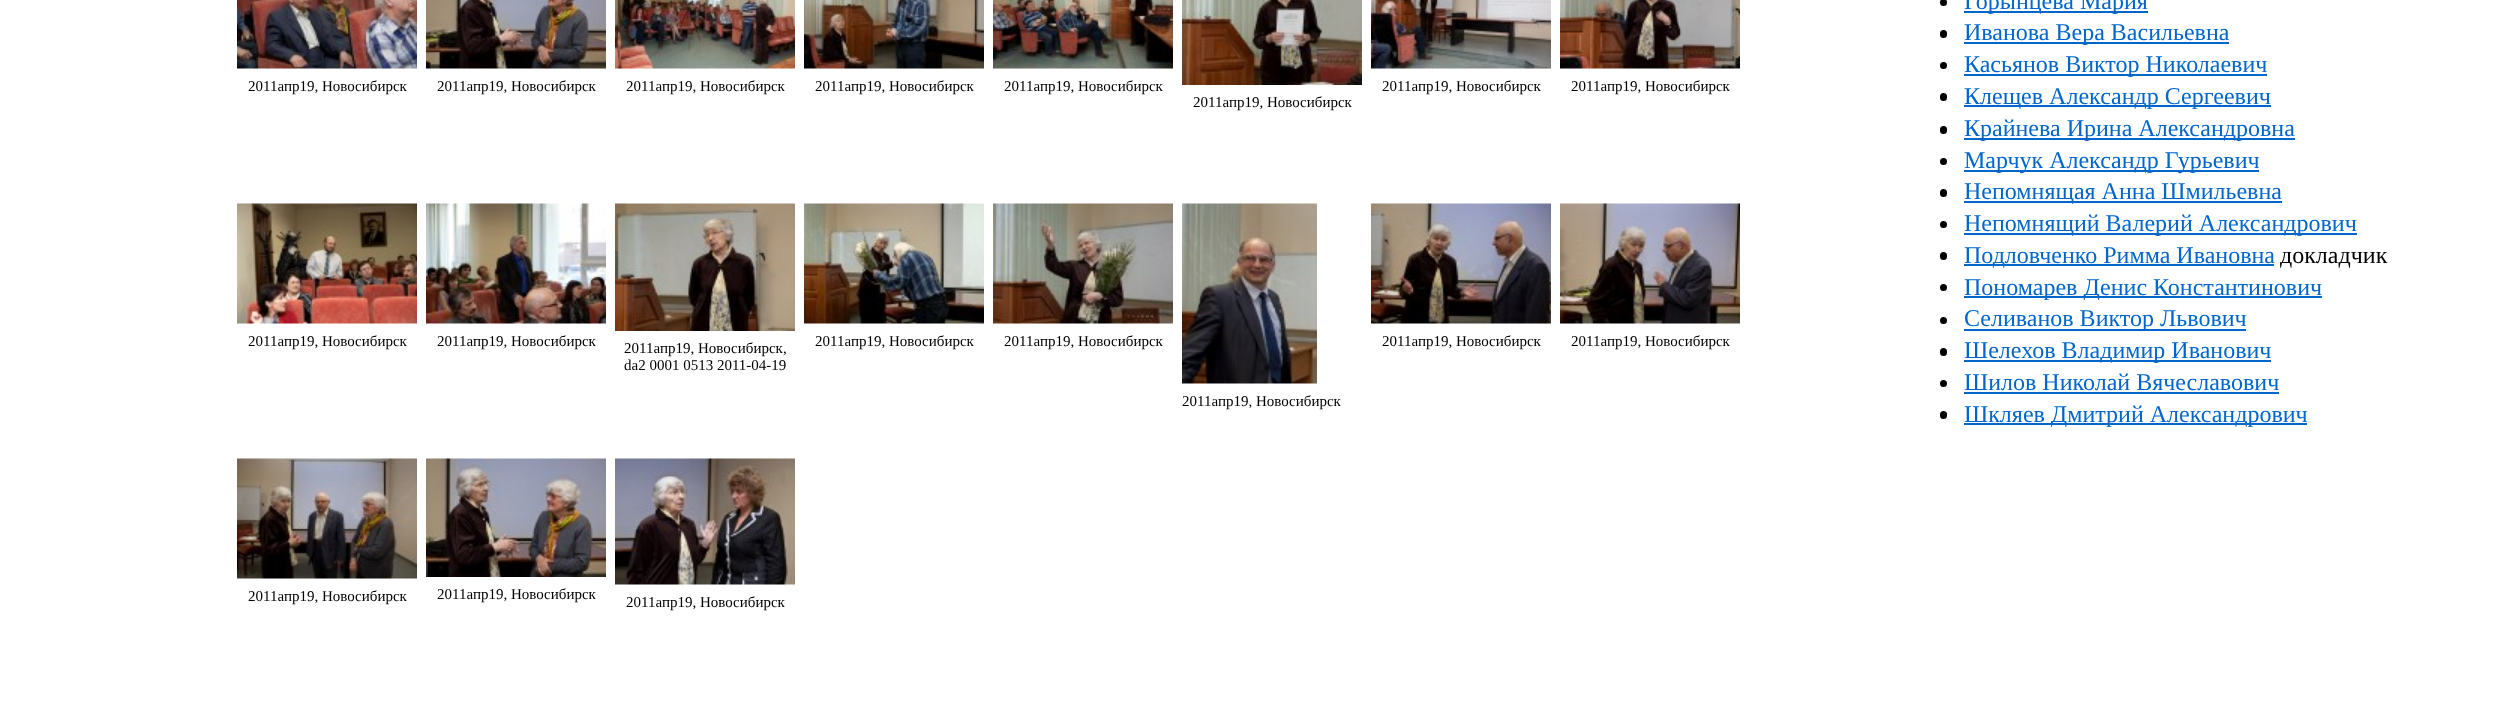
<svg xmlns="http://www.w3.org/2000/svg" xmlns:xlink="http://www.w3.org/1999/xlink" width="2520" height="710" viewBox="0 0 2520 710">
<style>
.cls-1{font:15px Liberation Serif;fill:#000000}
.cls-2{font:24px Liberation Serif;fill:#0066cc}
.cls-3{font:24px Liberation Serif;fill:#000000}
</style>
<rect width="100%" height="100%" fill="#ffffff"/>
<image xlink:href="image0.png" x="237" y="0" width="180" height="69"/>
<image xlink:href="image1.png" x="426" y="0" width="180" height="69"/>
<image xlink:href="image2.png" x="615" y="0" width="180" height="69"/>
<image xlink:href="image3.png" x="804" y="0" width="180" height="69"/>
<image xlink:href="image4.png" x="993" y="0" width="180" height="69"/>
<image xlink:href="image5.png" x="1371" y="0" width="180" height="69"/>
<image xlink:href="image6.png" x="1560" y="0" width="180" height="69"/>
<image xlink:href="image7.png" x="1182" y="0" width="180" height="85"/>
<image xlink:href="image8.png" x="237" y="203" width="180" height="121"/>
<image xlink:href="image9.png" x="426" y="203" width="180" height="121"/>
<image xlink:href="image10.png" x="615" y="203" width="180" height="128"/>
<image xlink:href="image11.png" x="804" y="203" width="180" height="121"/>
<image xlink:href="image12.png" x="993" y="203" width="180" height="121"/>
<image xlink:href="image13.png" x="1371" y="203" width="180" height="121"/>
<image xlink:href="image14.png" x="1560" y="203" width="180" height="121"/>
<image xlink:href="image15.png" x="1182" y="203" width="135" height="181"/>
<image xlink:href="image16.png" x="237" y="458" width="180" height="121"/>
<image xlink:href="image17.png" x="426" y="458" width="180" height="119"/>
<image xlink:href="image18.png" x="615" y="458" width="180" height="127"/>
<circle fill="#000000" cx="1943.5" cy="2.5" r="3.5"/>
<rect fill="#0066cc" x="1964" y="11" width="184" height="2"/>
<rect fill="#000000" x="1940" y="30" width="7" height="8" rx="3.5"/>
<rect fill="#0066cc" x="1964" y="42" width="265" height="2"/>
<circle fill="#000000" cx="1943.5" cy="65.5" r="3.5"/>
<rect fill="#0066cc" x="1964" y="74" width="303" height="2"/>
<rect fill="#000000" x="1940" y="93" width="7" height="8" rx="3.5"/>
<rect fill="#0066cc" x="1964" y="105" width="307" height="2"/>
<rect fill="#000000" x="1940" y="126" width="7" height="8" rx="3.5"/>
<rect fill="#0066cc" x="1964" y="138" width="331" height="2"/>
<circle fill="#000000" cx="1943.5" cy="161.5" r="3.5"/>
<rect fill="#0066cc" x="1964" y="170" width="295" height="2"/>
<rect fill="#000000" x="1940" y="189" width="7" height="8" rx="3.5"/>
<rect fill="#0066cc" x="1964" y="201" width="318" height="2"/>
<circle fill="#000000" cx="1943.5" cy="224.5" r="3.5"/>
<rect fill="#0066cc" x="1964" y="233" width="393" height="2"/>
<rect fill="#000000" x="1940" y="252" width="7" height="8" rx="3.5"/>
<rect fill="#0066cc" x="1964" y="264" width="310" height="2"/>
<circle fill="#000000" cx="1943.5" cy="287.5" r="3.5"/>
<rect fill="#0066cc" x="1964" y="296" width="358" height="2"/>
<circle fill="#000000" cx="1943.5" cy="320.5" r="3.5"/>
<rect fill="#0066cc" x="1964" y="329" width="282" height="2"/>
<rect fill="#000000" x="1940" y="348" width="7" height="8" rx="3.5"/>
<rect fill="#0066cc" x="1964" y="360" width="307" height="2"/>
<circle fill="#000000" cx="1943.5" cy="383.5" r="3.5"/>
<rect fill="#0066cc" x="1964" y="392" width="315" height="2"/>
<rect fill="#000000" x="1940" y="411" width="7" height="8" rx="3.5"/>
<rect fill="#0066cc" x="1964" y="423" width="343" height="2"/>
<text class="cls-1" x="248" y="91">2011апр19, Новосибирск</text>
<text class="cls-1" x="437" y="91">2011апр19, Новосибирск</text>
<text class="cls-1" x="626" y="91">2011апр19, Новосибирск</text>
<text class="cls-1" x="815" y="91">2011апр19, Новосибирск</text>
<text class="cls-1" x="1004" y="91">2011апр19, Новосибирск</text>
<text class="cls-1" x="1382" y="91">2011апр19, Новосибирск</text>
<text class="cls-1" x="1571" y="91">2011апр19, Новосибирск</text>
<text class="cls-1" x="1193" y="107">2011апр19, Новосибирск</text>
<text class="cls-1" x="248" y="346">2011апр19, Новосибирск</text>
<text class="cls-1" x="437" y="346">2011апр19, Новосибирск</text>
<text class="cls-1"><tspan x="624" y="353">2011апр19, Новосибирск,</tspan><tspan x="624" y="370">da2 0001 0513 2011-04-19</tspan></text>
<text class="cls-1" x="815" y="346">2011апр19, Новосибирск</text>
<text class="cls-1" x="1004" y="346">2011апр19, Новосибирск</text>
<text class="cls-1" x="1382" y="346">2011апр19, Новосибирск</text>
<text class="cls-1" x="1571" y="346">2011апр19, Новосибирск</text>
<text class="cls-1" x="1182" y="406">2011апр19, Новосибирск</text>
<text class="cls-1" x="248" y="601">2011апр19, Новосибирск</text>
<text class="cls-1" x="437" y="599">2011апр19, Новосибирск</text>
<text class="cls-1" x="626" y="607">2011апр19, Новосибирск</text>
<text class="cls-2"><tspan x="1964" y="9">Горынцева Мария</tspan><tspan x="1964" y="40">Иванова Вера Васильевна</tspan><tspan x="1964" y="72">Касьянов Виктор Николаевич</tspan><tspan x="1964" y="104">Клещев Александр Сергеевич</tspan><tspan x="1964" y="136">Крайнева Ирина Александровна</tspan><tspan x="1964" y="168">Марчук Александр Гурьевич</tspan><tspan x="1964" y="199">Непомнящая Анна Шмильевна</tspan><tspan x="1964" y="231">Непомнящий Валерий Александрович</tspan><tspan x="1964" y="263">Подловченко Римма Ивановна</tspan></text>
<text class="cls-3" x="2280" y="263">докладчик</text>
<text class="cls-2"><tspan x="1964" y="295">Пономарев Денис Константинович</tspan><tspan x="1964" y="326">Селиванов Виктор Львович</tspan><tspan x="1964" y="358">Шелехов Владимир Иванович</tspan><tspan x="1964" y="390">Шилов Николай Вячеславович</tspan><tspan x="1964" y="422">Шкляев Дмитрий Александрович</tspan></text>
</svg>
